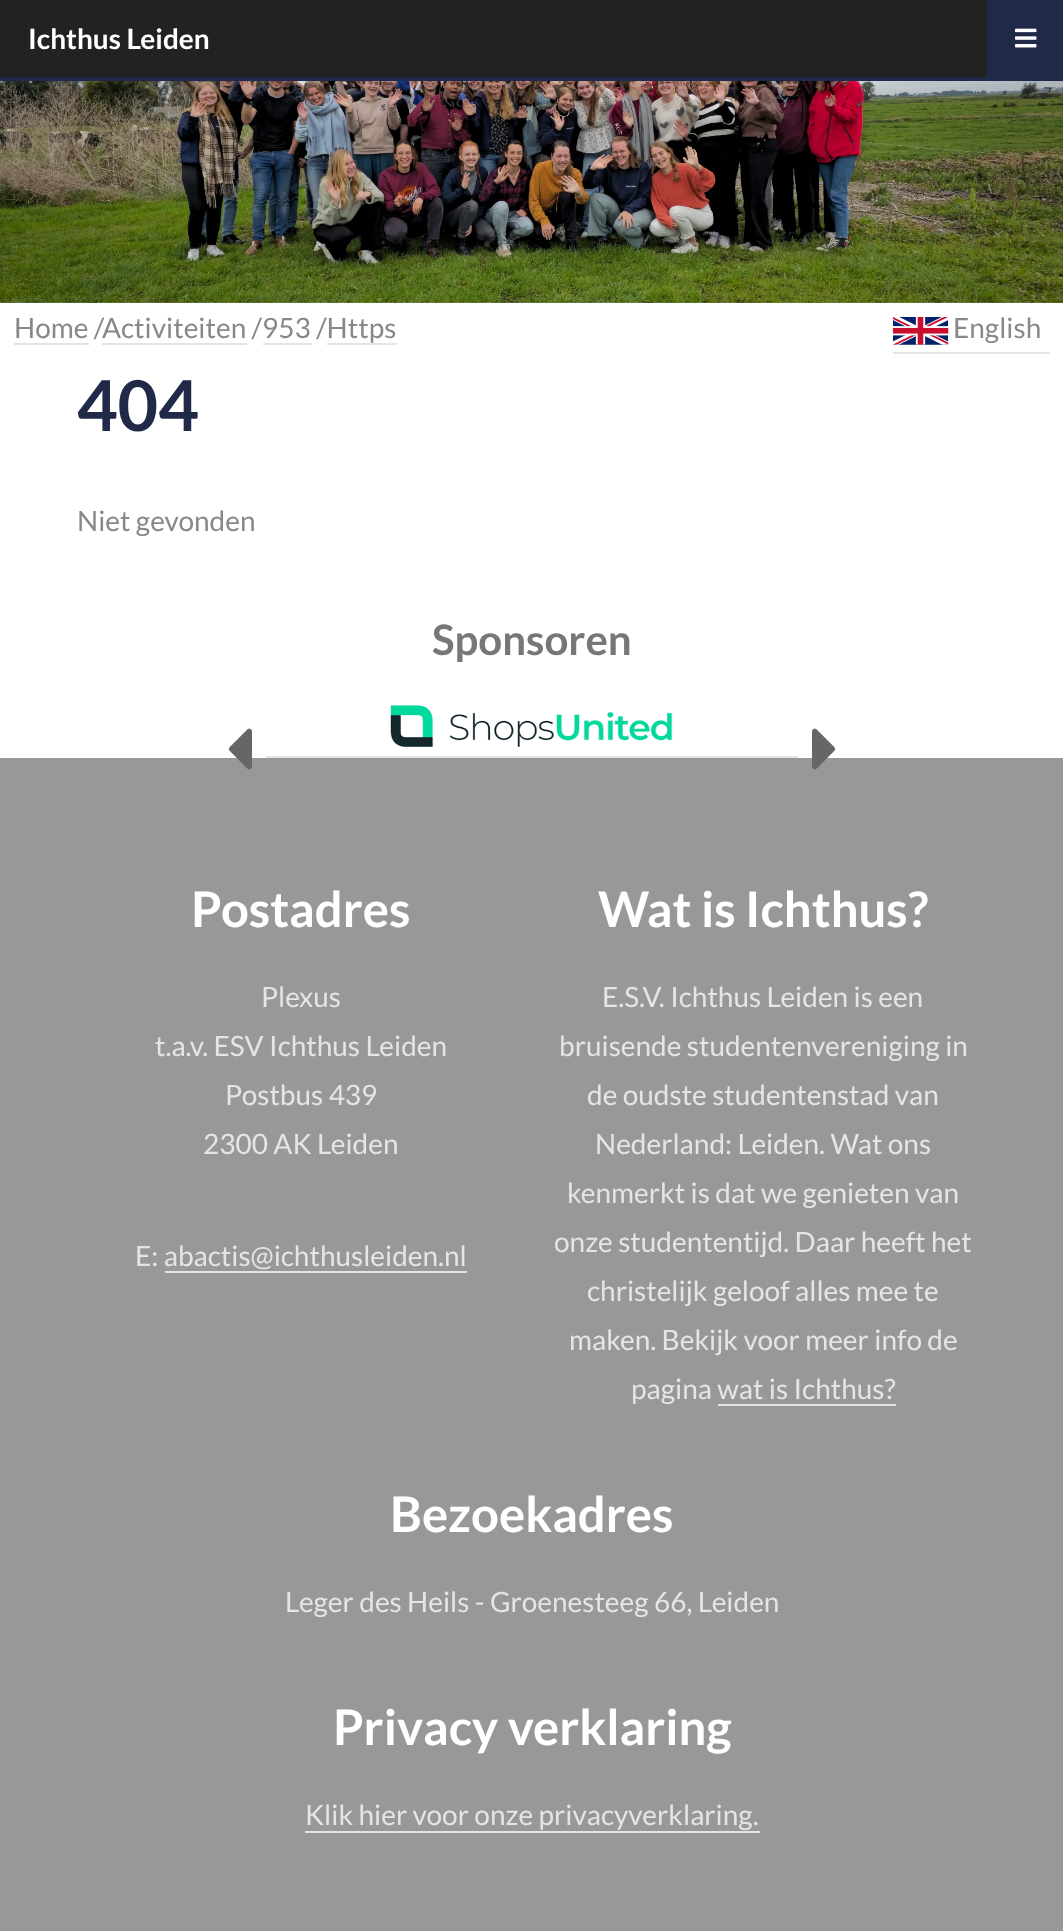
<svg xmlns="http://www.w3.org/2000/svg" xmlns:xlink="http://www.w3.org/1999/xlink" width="1063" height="1931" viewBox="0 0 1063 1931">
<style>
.cls-1{font:bold 28px Lato;fill:#ffffff}
.cls-2{font:28px Lato;fill:#888888}
.cls-3{font:bold 70px Lato;fill:#202948}
.cls-4{font:bold 42px Lato;fill:#777777}
.cls-5{font:bold 49px Lato;fill:#ffffff}
.cls-6{font:28px Lato;fill:#e5e5e5}
</style>
<rect width="100%" height="100%" fill="#ffffff"/>
<rect fill="#222222" x="0" y="0" width="987" height="77"/>
<rect fill="#202948" x="987" y="0" width="76" height="77"/>
<image xlink:href="image0.png" x="1015" y="28" width="22" height="20"/>
<rect fill="#202948" x="0" y="77" width="1063" height="4"/>
<image xlink:href="image1.png" x="0" y="81" width="1063" height="222"/>
<rect fill="#e4e4e4" x="14" y="343" width="75" height="2"/>
<rect fill="#e4e4e4" x="102" y="343" width="145" height="2"/>
<rect fill="#e4e4e4" x="893" y="352" width="157" height="2"/>
<image xlink:href="image2.png" x="893" y="317" width="56" height="28"/>
<rect fill="#e4e4e4" x="263" y="343" width="49" height="2"/>
<rect fill="#e4e4e4" x="327" y="343" width="70" height="2"/>
<rect fill="#989898" x="0" y="758" width="1063" height="1173"/>
<image xlink:href="image3.png" x="228" y="728" width="24" height="42"/>
<rect fill="#e4e4e4" x="266" y="756" width="532" height="2"/>
<image xlink:href="image4.png" x="390" y="705" width="283" height="42"/>
<image xlink:href="image5.png" x="812" y="728" width="24" height="42"/>
<rect fill="#e4e4e4" x="165" y="1271" width="302" height="2"/>
<rect fill="#e4e4e4" x="305" y="1831" width="455" height="2"/>
<text class="cls-1" x="28" y="49">Ichthus Leiden</text>
<text class="cls-2" x="14" y="338">Home /</text>
<text class="cls-2" x="102" y="338">Activiteiten /953 /Https</text>
<text class="cls-2" x="953" y="338">English</text>
<text class="cls-3" x="77" y="431">404</text>
<text class="cls-2" x="77" y="531">Niet gevonden</text>
<text class="cls-4" x="432" y="655">Sponsoren</text>
<text class="cls-5" x="191" y="927">Postadres</text>
<text class="cls-6" x="261" y="1007">Plexus</text>
<text class="cls-6" x="155" y="1056">t.a.v. ESV Ichthus Leiden</text>
<text class="cls-6" x="225" y="1105">Postbus 439</text>
<text class="cls-6" x="203" y="1154">2300 AK Leiden</text>
<text class="cls-6" x="135" y="1266">E: abactis@ichthusleiden.nl</text>
<text class="cls-5" x="598" y="927">Wat is Ichthus?</text>
<text class="cls-6" x="602" y="1007">E.S.V. Ichthus Leiden is een</text>
<text class="cls-6" x="559" y="1056">bruisende studentenvereniging in</text>
<text class="cls-6" x="587" y="1105">de oudste studentenstad van</text>
<text class="cls-6" x="595" y="1154">Nederland: Leiden. Wat ons</text>
<text class="cls-6" x="567" y="1203">kenmerkt is dat we genieten van</text>
<text class="cls-6" x="554" y="1252">onze studententijd. Daar heeft het</text>
<text class="cls-6" x="587" y="1301">christelijk geloof alles mee te</text>
<text class="cls-6" x="569" y="1350">maken. Bekijk voor meer info de</text>
<text class="cls-6" x="631" y="1399">pagina wat is Ichthus?</text>
<rect fill="#e4e4e4" x="718" y="1404" width="178" height="2"/>
<text class="cls-5" x="390" y="1532">Bezoekadres</text>
<text class="cls-6" x="285" y="1612">Leger des Heils - Groenesteeg 66, Leiden</text>
<text class="cls-5" x="333" y="1745">Privacy verklaring</text>
<text class="cls-6" x="305" y="1825">Klik hier voor onze privacyverklaring.</text>
</svg>
